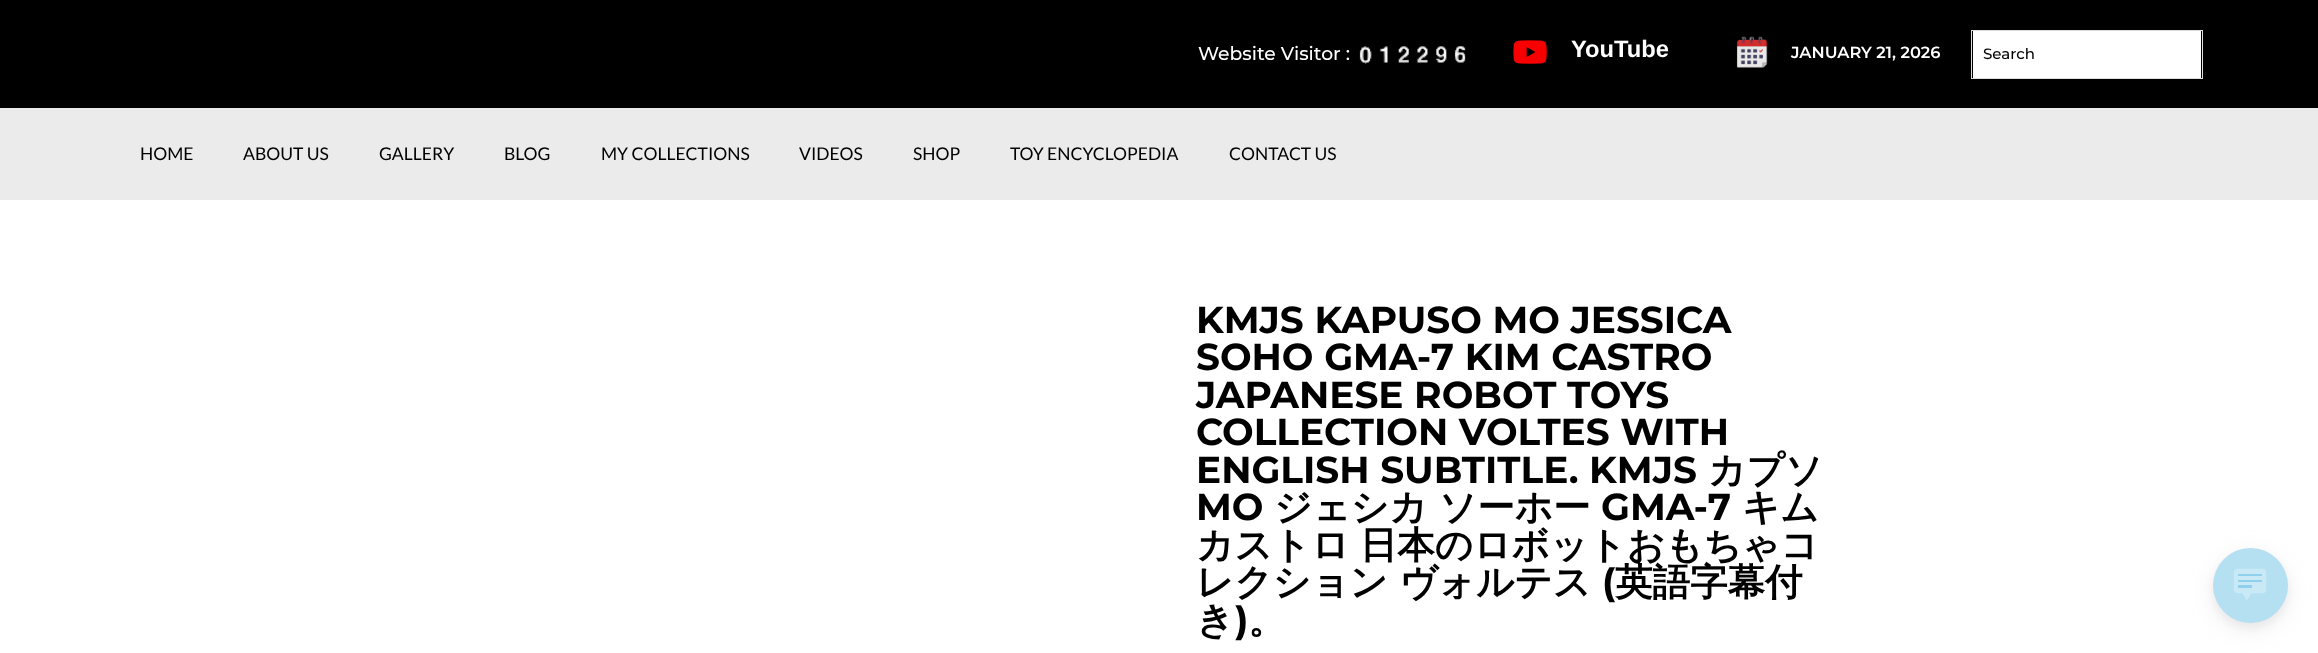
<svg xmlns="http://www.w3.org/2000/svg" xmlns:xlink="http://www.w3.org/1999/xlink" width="2318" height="653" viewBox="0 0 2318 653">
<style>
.cls-1{font:500 18.75px Montserrat;fill:#ffffff}
.cls-2{font:bold 23.75px Liberation Sans;fill:#ffffff}
.cls-3{font:600 16.25px Montserrat;fill:#ffffff}
.cls-4{font:500 15px Montserrat;fill:#000000}
.cls-5{font:17.5px Lato;fill:#000000}
.cls-6{font:bold 37.5px Montserrat;fill:#000000}
.cls-7{font:bold 37.5px WenQuanYi Zen Hei;fill:#000000}
</style>
<rect width="100%" height="100%" fill="#ffffff"/>
<rect fill="#000000" x="0" y="0" width="2318" height="108"/>
<image xlink:href="image0.png" x="1359" y="46" width="13" height="18"/>
<image xlink:href="image1.png" x="1379" y="46" width="9" height="17"/>
<image xlink:href="image2.png" x="1398" y="46" width="11" height="17"/>
<image xlink:href="image3.png" x="1417" y="46" width="11" height="17"/>
<image xlink:href="image4.png" x="1436" y="46" width="11" height="17"/>
<image xlink:href="image5.png" x="1454" y="46" width="12" height="17"/>
<image xlink:href="image6.png" x="1513" y="40" width="34" height="24"/>
<image xlink:href="image7.png" x="1736" y="36" width="32" height="32"/>
<rect fill="none" stroke="#dddddd" x="1971.5" y="30.5" width="231" height="48"/>
<rect fill="#ffffff" x="1973" y="31" width="228" height="47"/>
<rect fill="#ebebeb" x="0" y="108" width="2318" height="92"/>
<rect fill="#b3b3b3" fill-opacity="0.19" filter="blur(12.5px)" x="2213" y="555" width="75" height="75" rx="37.5"/>
<rect fill="#b3b3b3" fill-opacity="0.2" filter="blur(5px)" x="2213" y="553" width="75" height="75" rx="37.5"/>
<circle fill="#b4e0f2" cx="2250.5" cy="585.5" r="37.5"/>
<image xlink:href="image8.png" x="2233" y="568" width="34" height="33"/>
<text class="cls-1" x="1198" y="60">Website Visitor :</text>
<text class="cls-2" x="1571" y="57">YouTube</text>
<text class="cls-3" x="1791" y="58">JANUARY 21, 2026</text>
<text class="cls-4" x="1983" y="59">Search</text>
<text class="cls-5" x="140" y="160">HOME</text>
<text class="cls-5" x="243" y="160">ABOUT US</text>
<text class="cls-5" x="379" y="160">GALLERY</text>
<text class="cls-5" x="504" y="160">BLOG</text>
<text class="cls-5" x="601" y="160">MY COLLECTIONS</text>
<text class="cls-5" x="799" y="160">VIDEOS</text>
<text class="cls-5" x="913" y="160">SHOP</text>
<text class="cls-5" x="1010" y="160">TOY ENCYCLOPEDIA</text>
<text class="cls-5" x="1229" y="160">CONTACT US</text>
<text class="cls-6"><tspan x="1196" y="333">KMJS KAPUSO MO JESSICA</tspan><tspan x="1196" y="370">SOHO GMA-7 KIM CASTRO</tspan><tspan x="1196" y="408">JAPANESE ROBOT TOYS</tspan><tspan x="1196" y="445">COLLECTION VOLTES WITH</tspan><tspan x="1196" y="483">ENGLISH SUBTITLE. KMJS</tspan></text>
<text class="cls-7" x="1708" y="483">カプソ</text>
<text class="cls-6" x="1196" y="520">MO</text>
<text class="cls-7" x="1274" y="520">ジェシカ ソーホー</text>
<text class="cls-6" x="1601" y="520">GMA-7</text>
<text class="cls-7" x="1742" y="520">キム</text>
<text class="cls-7"><tspan x="1196" y="558" word-spacing="-1">カストロ 日本のロボットおもちゃコ</tspan><tspan x="1196" y="595">レクション ヴォルテス</tspan></text>
<text class="cls-6" x="1602" y="595">(</text>
<text class="cls-7" x="1615" y="595">英語字幕付</text>
<text class="cls-7" x="1196" y="633">き</text>
<text class="cls-6" x="1235" y="633">)</text>
<text class="cls-7" x="1248" y="633">。</text>
</svg>
